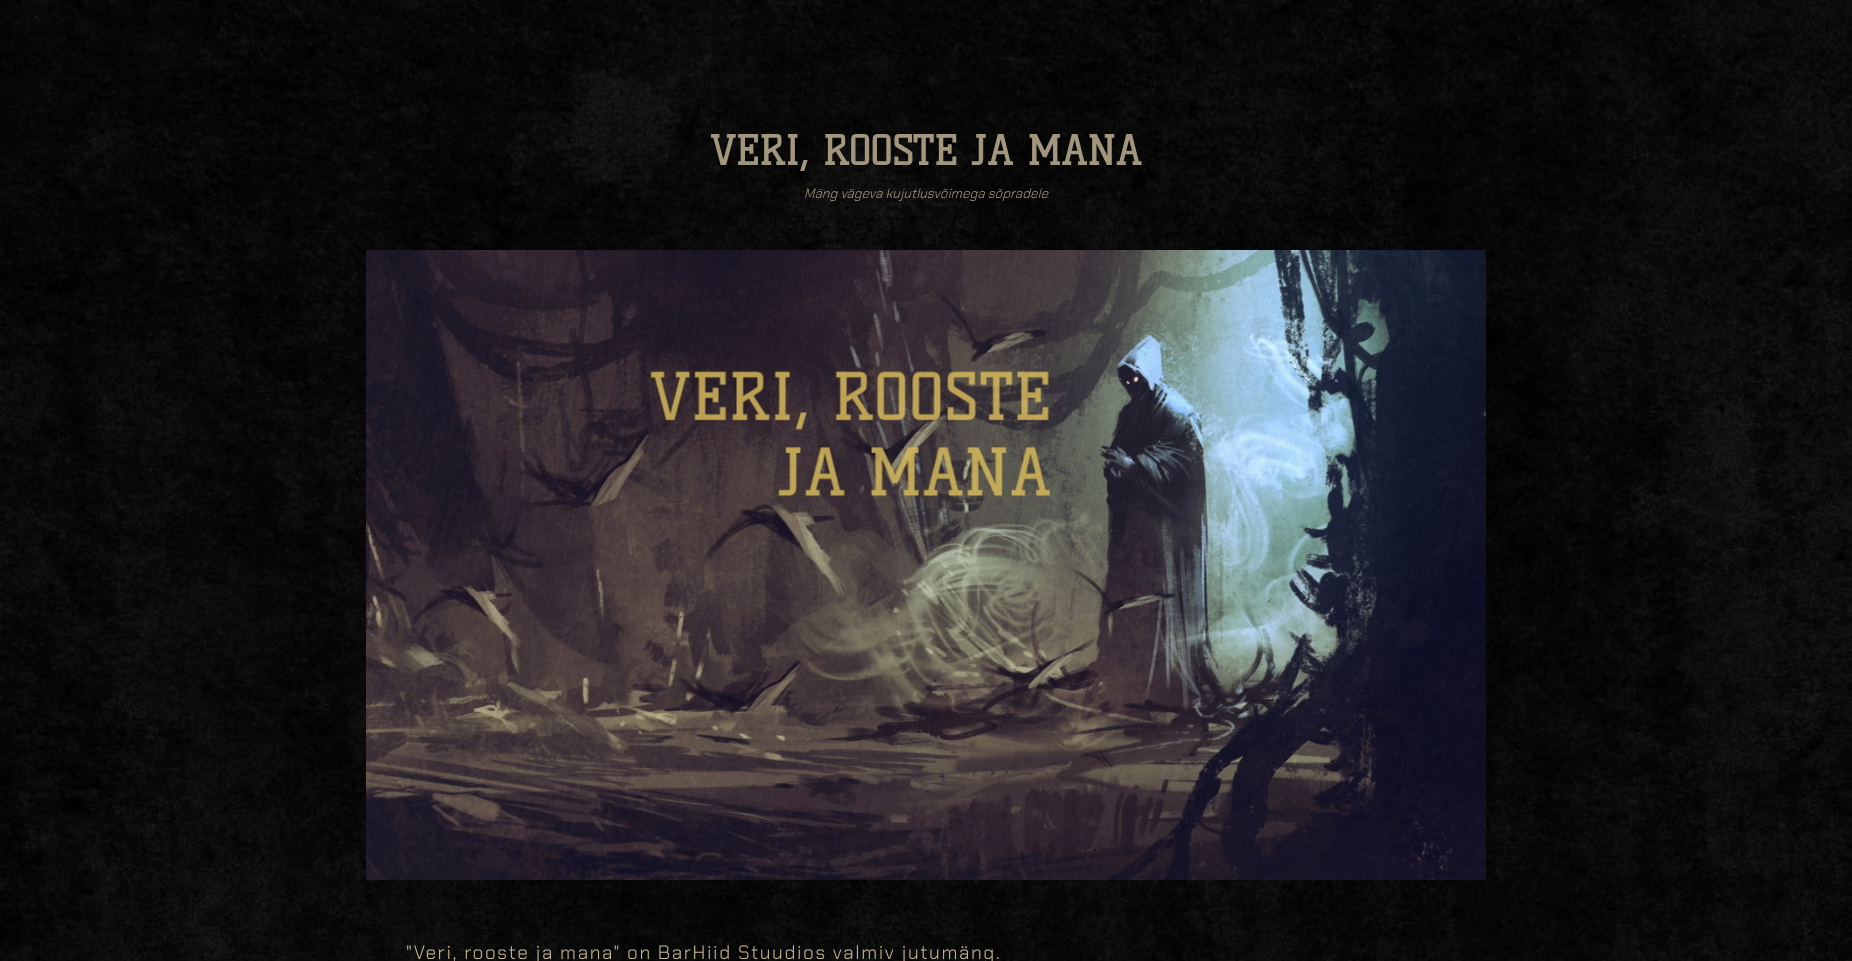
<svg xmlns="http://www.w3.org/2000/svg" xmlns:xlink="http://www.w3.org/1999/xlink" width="1852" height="961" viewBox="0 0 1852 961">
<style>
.cls-1{font:bold 40px Kelly Slab;fill:#a2967f}
.cls-2{font:italic 300 13.6px Chakra Petch;fill:#a2967f}
.cls-3{font:300 19.2px Chakra Petch;letter-spacing:1.6px;fill:#c5b79a}
</style>
<rect width="100%" height="100%" fill="#ffffff"/>
<image xlink:href="image0.png" x="0" y="0" width="1852" height="961"/>
<image xlink:href="image1.png" x="366" y="250" width="1120" height="630"/>
<text class="cls-1" x="710" y="165">VERI, ROOSTE JA MANA</text>
<text class="cls-2" x="804" y="198">Mäng vägeva kujutlusvõimega sõpradele</text>
<text class="cls-3" x="406" y="959">"Veri, rooste ja mana" on BarHiid Stuudios valmiv jutumäng.</text>
</svg>
